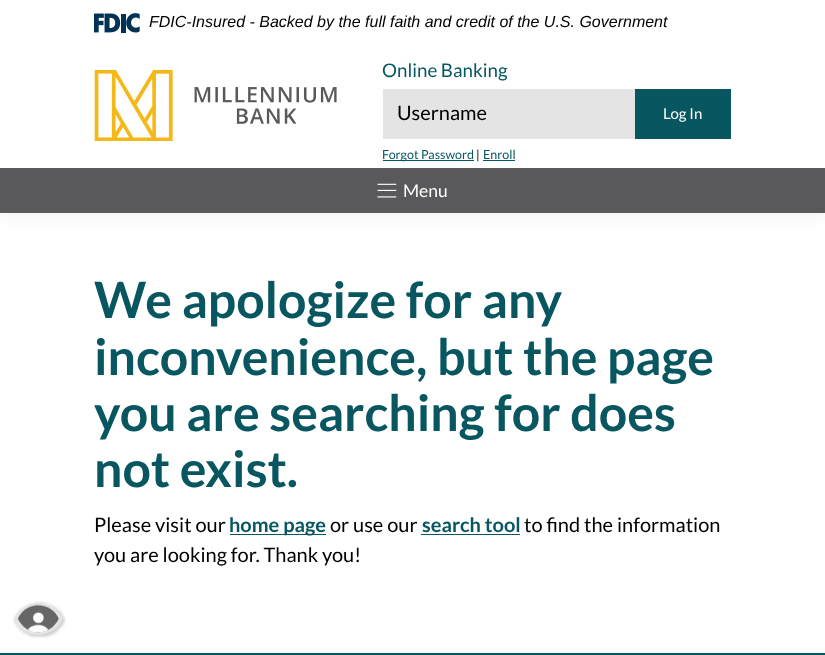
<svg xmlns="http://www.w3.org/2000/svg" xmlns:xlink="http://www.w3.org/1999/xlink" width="825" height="655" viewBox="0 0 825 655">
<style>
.cls-1{font:italic 16px Liberation Sans;fill:#000000}
.cls-2{font:18.75px Lato;fill:#085760}
.cls-3{font:20px Lato;fill:#000000}
.cls-4{font:15px Lato;fill:#ffffff}
.cls-5{font:12.5px Lato;fill:#085760}
.cls-6{font:12.5px Lato;fill:#000000}
.cls-7{font:17.5px Lato;fill:#ffffff}
.cls-8{font:bold 50px Lato;fill:#085760}
.cls-9{font:bold 20px Lato;fill:#085760}
</style>
<rect width="100%" height="100%" fill="#ffffff"/>
<rect fill="#000000" fill-opacity="0.07" filter="blur(9.5px)" x="-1" y="-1" width="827" height="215"/>
<rect fill="#ffffff" x="0" y="0" width="825" height="168"/>
<image xlink:href="image0.png" x="94" y="13" width="46" height="20"/>
<image xlink:href="image1.png" x="94" y="70" width="243" height="71"/>
<rect fill="#e4e4e4" x="383" y="89" width="252" height="50"/>
<rect fill="#085760" x="635" y="89" width="96" height="50"/>
<rect fill="#085760" x="383" y="160" width="91" height="1"/>
<rect fill="#085760" x="483" y="160" width="32" height="1"/>
<rect fill="#59595c" x="0" y="168" width="825" height="45"/>
<image xlink:href="image2.png" x="377" y="183" width="20" height="15"/>
<rect fill="#085760" x="230" y="534" width="96" height="1"/>
<rect fill="#085760" x="421" y="534" width="99" height="1"/>
<image xlink:href="image3.png" x="13" y="601" width="53" height="37"/>
<rect fill="#085760" x="0" y="653" width="825" height="2"/>
<text class="cls-1" x="149" y="27">FDIC-Insured - Backed by the full faith and credit of the U.S. Government</text>
<text class="cls-2" x="382" y="77">Online Banking</text>
<text class="cls-3" x="397" y="120">Username</text>
<text class="cls-4" x="663" y="119">Log In</text>
<text class="cls-5" x="382" y="159">Forgot Password</text>
<text class="cls-6" x="476" y="159">|</text>
<text class="cls-5" x="483" y="159">Enroll</text>
<text class="cls-7" x="403" y="197">Menu</text>
<text class="cls-8"><tspan x="94" y="318">We apologize for any</tspan><tspan x="94" y="375">inconvenience, but the page</tspan><tspan x="94" y="431">you are searching for does</tspan><tspan x="94" y="487">not exist.</tspan></text>
<text class="cls-3" x="94" y="532">Please visit our</text>
<text class="cls-9" x="229" y="532">home page</text>
<text class="cls-3" x="330" y="532">or use our</text>
<text class="cls-9" x="422" y="532">search tool</text>
<text class="cls-3" x="524" y="532">to find the information</text>
<text class="cls-3" x="94" y="562">you are looking for. Thank you!</text>
</svg>
